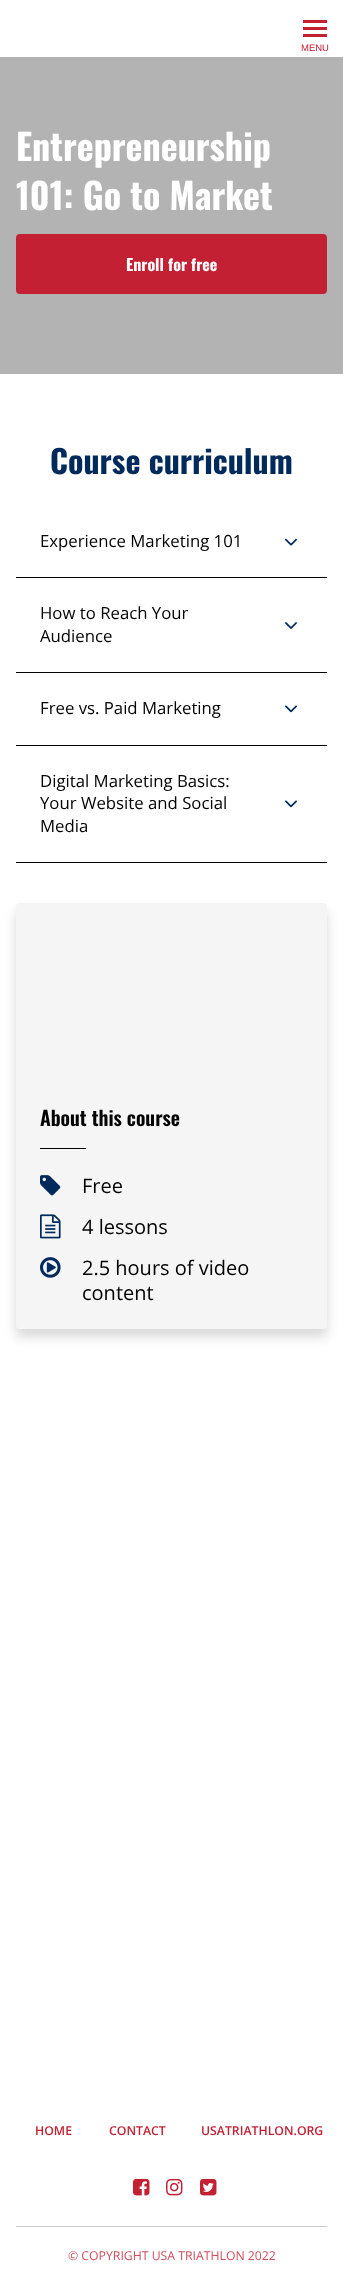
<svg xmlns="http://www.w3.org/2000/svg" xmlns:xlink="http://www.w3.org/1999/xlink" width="343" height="2289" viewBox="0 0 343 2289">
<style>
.cls-1{font:9.5px Liberation Sans;fill:#c32033}
.cls-2{font:bold 36px Oswald;fill:#ffffff}
.cls-3{font:bold 16px Oswald;fill:#ffffff}
.cls-4{font:bold 32px Oswald;fill:#002a5c}
.cls-5{font:16.75px Open Sans;fill:#000000}
.cls-6{font:600 20px Oswald;fill:#000000}
.cls-7{font:20px Open Sans;fill:#000000}
.cls-8{font:600 12.25px Open Sans;fill:#c32033}
.cls-9{font:12.25px Open Sans;fill:#cf4d5c}
</style>
<rect width="100%" height="100%" fill="#ffffff"/>
<rect fill="#c32033" x="303" y="27" width="24" height="3"/>
<rect fill="#c32033" x="303" y="20" width="24" height="3"/>
<rect fill="#c32033" x="303" y="34" width="24" height="3"/>
<rect fill="#b3b3b3" x="0" y="57" width="343" height="317"/>
<rect fill="#c32033" x="16" y="234" width="311" height="60" rx="4"/>
<rect fill="#000000" x="16" y="577" width="311" height="1"/>
<image xlink:href="image0.png" x="285" y="538" width="12" height="8"/>
<rect fill="#000000" x="16" y="672" width="311" height="1"/>
<image xlink:href="image1.png" x="285" y="622" width="12" height="7"/>
<rect fill="#000000" x="16" y="745" width="311" height="1"/>
<image xlink:href="image2.png" x="285" y="705" width="12" height="8"/>
<rect fill="#000000" x="16" y="862" width="311" height="1"/>
<image xlink:href="image2.png" x="285" y="800" width="12" height="8"/>
<rect fill="#000000" fill-opacity="0.15" filter="blur(6px)" x="16" y="911" width="311" height="426" rx="4"/>
<rect fill="#f5f5f5" x="16" y="903" width="311" height="426" rx="4"/>
<rect fill="#000000" x="40" y="1148" width="46" height="1"/>
<image xlink:href="image3.png" x="40" y="1175" width="21" height="21"/>
<image xlink:href="image4.png" x="40" y="1214" width="21" height="25"/>
<image xlink:href="image5.png" x="40" y="1257" width="21" height="21"/>
<image xlink:href="image6.png" x="133" y="2178" width="17" height="18"/>
<image xlink:href="image7.png" x="166" y="2178" width="17" height="18"/>
<image xlink:href="image8.png" x="200" y="2178" width="17" height="18"/>
<rect fill="#cccccc" x="16" y="2226" width="311" height="1"/>
<text class="cls-1" x="301" y="51">MENU</text>
<text class="cls-2"><tspan x="16" y="161">Entrepreneurship</tspan><tspan x="16" y="210">101: Go to Market</tspan></text>
<text class="cls-3" x="126" y="271">Enroll for free</text>
<text class="cls-4" x="50" y="474">Course curriculum</text>
<text class="cls-5" x="40" y="547">Experience Marketing 101</text>
<text class="cls-5"><tspan x="40" y="619">How to Reach Your</tspan><tspan x="40" y="642">Audience</tspan></text>
<text class="cls-5" x="40" y="714">Free vs. Paid Marketing</text>
<text class="cls-5"><tspan x="40" y="787">Digital Marketing Basics:</tspan><tspan x="40" y="809">Your Website and Social</tspan><tspan x="40" y="832">Media</tspan></text>
<text class="cls-6" x="40" y="1126">About this course</text>
<text class="cls-7" x="82" y="1193">Free</text>
<text class="cls-7" x="82" y="1234">4 lessons</text>
<text class="cls-7"><tspan x="82" y="1275">2.5 hours of video</tspan><tspan x="82" y="1300">content</tspan></text>
<text class="cls-8" x="35" y="2135">HOME</text>
<text class="cls-8" x="109" y="2135">CONTACT</text>
<text class="cls-8" x="201" y="2135">USATRIATHLON.ORG</text>
<text class="cls-9" x="68" y="2260">© COPYRIGHT USA TRIATHLON 2022</text>
</svg>
